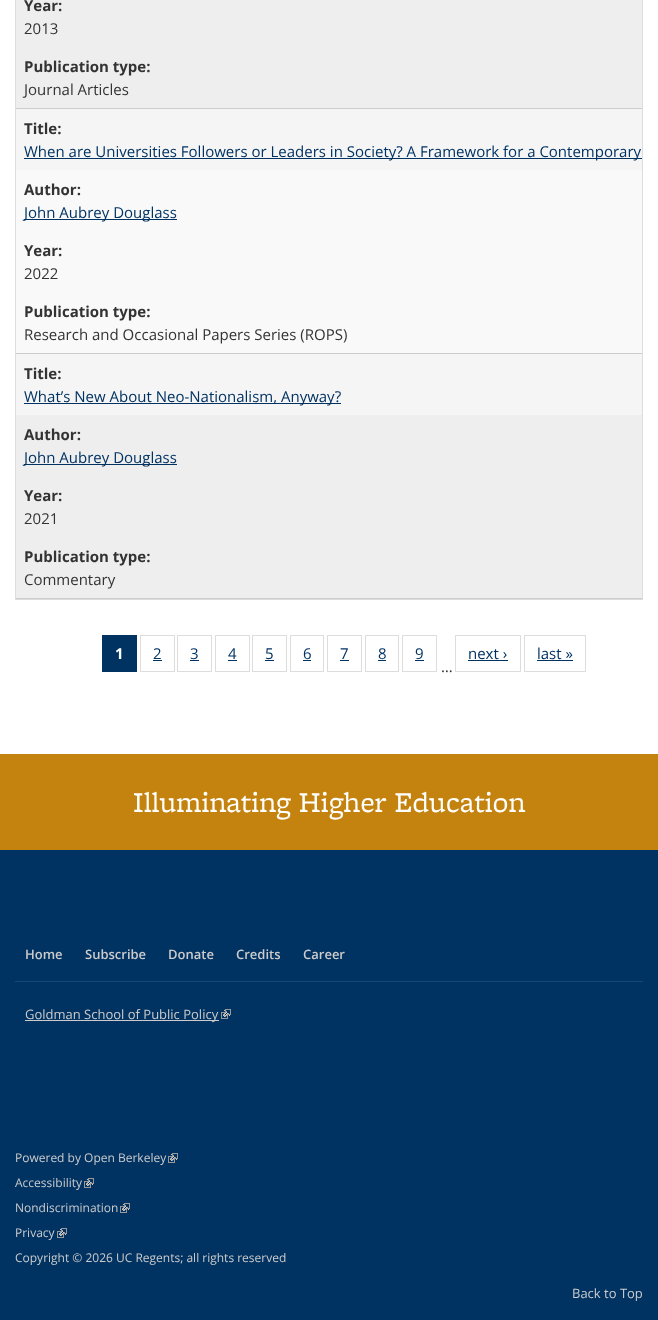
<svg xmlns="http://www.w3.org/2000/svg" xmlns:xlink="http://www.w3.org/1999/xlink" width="658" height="1320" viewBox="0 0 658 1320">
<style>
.cls-1{font:bold 15px Open Sans;fill:#333333}
.cls-2{font:15px Open Sans;fill:#333333}
.cls-3{font:15px Open Sans;fill:#003262}
.cls-4{font:bold 15px Open Sans;fill:#ffffff}
.cls-5{font:30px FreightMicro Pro;fill:#ffffff}
.cls-6{font:600 13px Open Sans;fill:#cccccc}
.cls-7{font:13px Open Sans;fill:#cccccc}
.cls-8{font:12px Open Sans;fill:#cccccc}
</style>
<rect width="100%" height="100%" fill="#ffffff"/>
<rect fill="none" stroke="#dddddd" x="15.5" y="-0.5" width="627" height="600"/>
<rect fill="#eeeeee" x="16" y="0" width="626" height="108"/>
<rect fill="#cccccc" x="16" y="108" width="626" height="1"/>
<rect fill="#f9f9f9" x="16" y="170" width="626" height="183"/>
<rect fill="#cccccc" x="16" y="353" width="626" height="1"/>
<rect fill="#f5f5f5" x="16" y="109" width="626" height="61"/>
<rect fill="#003262" x="24" y="158" width="618" height="1"/>
<rect fill="#003262" x="24" y="219" width="153" height="1"/>
<rect fill="#eeeeee" x="16" y="415" width="626" height="183"/>
<rect fill="#cccccc" x="16" y="598" width="626" height="1"/>
<rect fill="#f5f5f5" x="16" y="354" width="626" height="61"/>
<rect fill="#003262" x="24" y="403" width="317" height="1"/>
<rect fill="#003262" x="24" y="464" width="153" height="1"/>
<rect fill="#003262" x="102" y="635" width="35" height="37"/>
<rect fill="none" stroke="#dddddd" x="140.5" y="635.5" width="34" height="36"/>
<rect fill="#003262" x="153" y="660" width="9" height="1"/>
<rect fill="none" stroke="#dddddd" x="177.5" y="635.5" width="34" height="36"/>
<rect fill="#003262" x="190" y="660" width="9" height="1"/>
<rect fill="none" stroke="#dddddd" x="215.5" y="635.5" width="34" height="36"/>
<rect fill="#003262" x="228" y="660" width="9" height="1"/>
<rect fill="none" stroke="#dddddd" x="252.5" y="635.5" width="34" height="36"/>
<rect fill="#003262" x="265" y="660" width="9" height="1"/>
<rect fill="none" stroke="#dddddd" x="290.5" y="635.5" width="33" height="36"/>
<rect fill="#003262" x="303" y="660" width="8" height="1"/>
<rect fill="none" stroke="#dddddd" x="327.5" y="635.5" width="34" height="36"/>
<rect fill="#003262" x="340" y="660" width="9" height="1"/>
<rect fill="none" stroke="#dddddd" x="365.5" y="635.5" width="33" height="36"/>
<rect fill="#003262" x="378" y="660" width="8" height="1"/>
<rect fill="none" stroke="#dddddd" x="402.5" y="635.5" width="34" height="36"/>
<rect fill="#003262" x="415" y="660" width="9" height="1"/>
<rect fill="none" stroke="#dddddd" x="455.5" y="635.5" width="65" height="36"/>
<rect fill="#003262" x="468" y="660" width="40" height="1"/>
<rect fill="none" stroke="#dddddd" x="524.5" y="635.5" width="61" height="36"/>
<rect fill="#003262" x="537" y="660" width="36" height="1"/>
<rect fill="#003262" x="0" y="850" width="658" height="470"/>
<rect fill="#c4820e" x="0" y="754" width="658" height="96"/>
<rect fill="#1a4772" x="15" y="981" width="628" height="1"/>
<rect fill="#cccccc" x="25" y="1020" width="194" height="1"/>
<image xlink:href="image0.png" x="221" y="1009" width="10" height="10"/>
<image xlink:href="image0.png" x="168" y="1153" width="10" height="10"/>
<image xlink:href="image0.png" x="84" y="1178" width="10" height="10"/>
<image xlink:href="image0.png" x="120" y="1203" width="10" height="10"/>
<image xlink:href="image0.png" x="57" y="1228" width="10" height="10"/>
<text class="cls-1" x="24" y="11">Year:</text>
<text class="cls-2" x="24" y="34">2013</text>
<text class="cls-1" x="24" y="72">Publication type:</text>
<text class="cls-2" x="24" y="95">Journal Articles</text>
<text class="cls-1" x="24" y="134">Title:</text>
<text class="cls-3" x="24" y="157">When are Universities Followers or Leaders in Society? A Framework for a Contemporary</text>
<text class="cls-1" x="24" y="195">Author:</text>
<text class="cls-3" x="24" y="218">John Aubrey Douglass</text>
<text class="cls-1" x="24" y="256">Year:</text>
<text class="cls-2" x="24" y="279">2022</text>
<text class="cls-1" x="24" y="317">Publication type:</text>
<text class="cls-2" x="24" y="340">Research and Occasional Papers Series (ROPS)</text>
<text class="cls-1" x="24" y="379">Title:</text>
<text class="cls-3" x="24" y="402">What’s New About Neo-Nationalism, Anyway?</text>
<text class="cls-1" x="24" y="440">Author:</text>
<text class="cls-3" x="24" y="463">John Aubrey Douglass</text>
<text class="cls-1" x="24" y="501">Year:</text>
<text class="cls-2" x="24" y="524">2021</text>
<text class="cls-1" x="24" y="562">Publication type:</text>
<text class="cls-2" x="24" y="585">Commentary</text>
<text class="cls-4" x="115" y="659">1</text>
<text class="cls-3" x="153" y="659">2</text>
<text class="cls-3" x="190" y="659">3</text>
<text class="cls-3" x="228" y="659">4</text>
<text class="cls-3" x="265" y="659">5</text>
<text class="cls-3" x="303" y="659">6</text>
<text class="cls-3" x="340" y="659">7</text>
<text class="cls-3" x="378" y="659">8</text>
<text class="cls-3" x="415" y="659">9</text>
<text class="cls-3" x="468" y="659">next ›</text>
<text class="cls-3" x="537" y="659">last »</text>
<text class="cls-2" x="441" y="672">…</text>
<text class="cls-5" x="133" y="812">Illuminating Higher Education</text>
<text class="cls-6" x="25" y="959">Home</text>
<text class="cls-6" x="85" y="959">Subscribe</text>
<text class="cls-6" x="168" y="959">Donate</text>
<text class="cls-6" x="236" y="959">Credits</text>
<text class="cls-6" x="303" y="959">Career</text>
<text class="cls-7" x="25" y="1019">Goldman School of Public Policy</text>
<text class="cls-8" x="15" y="1162">Powered by Open Berkeley</text>
<text class="cls-8" x="15" y="1187">Accessibility</text>
<text class="cls-8" x="15" y="1212">Nondiscrimination</text>
<text class="cls-8" x="15" y="1237">Privacy</text>
<text class="cls-8" x="15" y="1262">Copyright © 2026 UC Regents; all rights reserved</text>
<text class="cls-7" x="572" y="1298">Back to Top</text>
</svg>
